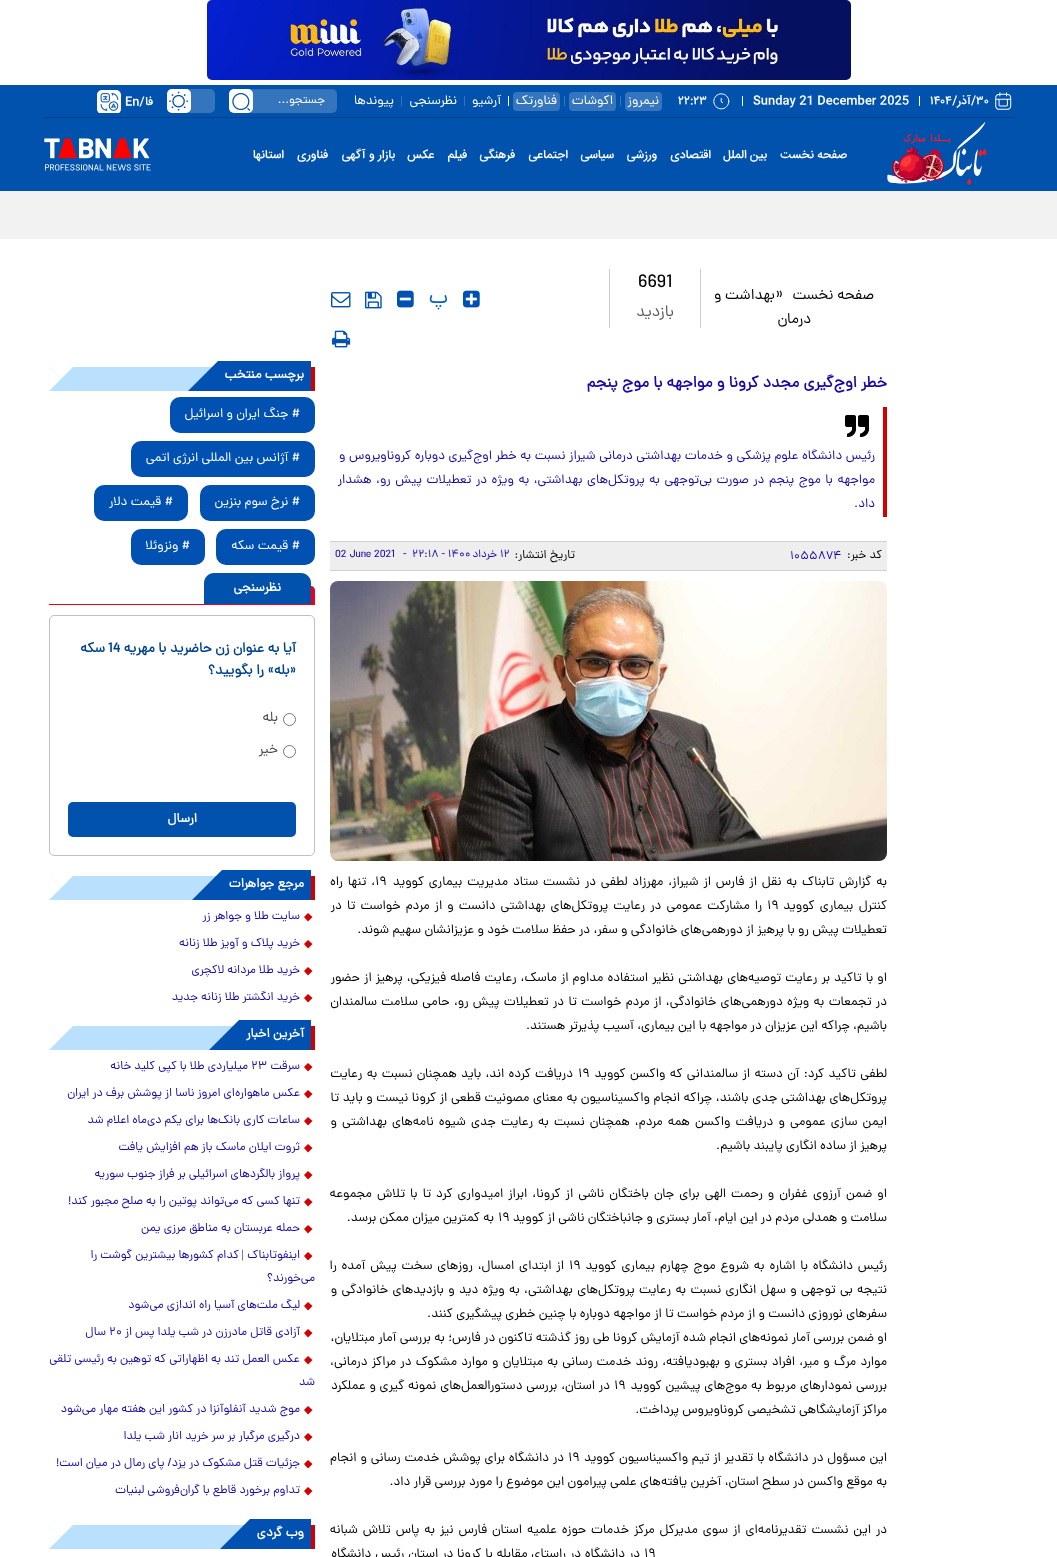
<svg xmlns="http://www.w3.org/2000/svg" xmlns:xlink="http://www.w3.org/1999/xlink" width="1057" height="1557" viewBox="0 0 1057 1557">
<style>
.cls-1{font:500 12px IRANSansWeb;fill:#ffffff}
.cls-2{font:500 12px IRANSansWeb;direction:rtl;fill:#ffffff}
.cls-3{font:13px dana;direction:rtl;fill:#ffffff}
.cls-4{font:12px dana;direction:rtl;fill:#ffffff}
.cls-5{font:15px dana;direction:rtl;fill:#000000}
.cls-6{font:18px dana;fill:#000000}
.cls-7{font:19px dana;fill:#000000}
.cls-8{font:16px dana;direction:rtl;fill:#595959}
.cls-9{font:21px dana;direction:rtl;fill:#0060c4}
.cls-10{font:bold 16px dana;direction:rtl;fill:#1809a6}
.cls-11{font:13px dana;direction:rtl;fill:#1809a6}
.cls-12{font:12px dana;direction:rtl;fill:#000000}
.cls-13{font:12px dana;fill:#1809a6}
.cls-14{font:11px dana;fill:#1809a6}
.cls-15{font:11px dana;direction:rtl;fill:#1809a6}
.cls-16{font:13px dana;direction:rtl;fill:#000000}
.cls-17{font:13px dana;fill:#000000}
.cls-18{font:bold 13px dana;direction:rtl;fill:#ffffff}
.cls-19{font:bold 14px dana;direction:rtl;fill:#004292}
.cls-20{font:bold 14px dana;fill:#004292}
.cls-21{font:14px dana;direction:rtl;fill:#4a4a4a}
.cls-22{font:12px dana;direction:rtl;fill:#1809a6}
.cls-23{font:12px Liberation Serif;direction:rtl;fill:#1809a6}
</style>
<rect width="100%" height="100%" fill="#ffffff"/>
<image xlink:href="image0.png" x="207" y="0" width="644" height="80"/>
<rect fill="#0152ad" x="0" y="85" width="1057" height="106"/>
<rect fill="#00418a" x="44" y="117" width="970" height="1"/>
<image xlink:href="image1.png" x="995" y="92" width="17" height="18"/>
<rect fill="#ffffff" x="919" y="96" width="1" height="10"/>
<rect fill="#ffffff" x="742" y="96" width="1" height="10"/>
<image xlink:href="image2.png" x="713" y="93" width="17" height="17"/>
<rect fill="#3475bd" x="625" y="92" width="37" height="19" rx="4"/>
<rect fill="#3475bd" x="620" y="96" width="1" height="10"/>
<rect fill="#3475bd" x="569" y="92" width="47" height="19" rx="4"/>
<rect fill="#3475bd" x="564" y="96" width="1" height="10"/>
<rect fill="#3475bd" x="513" y="92" width="47" height="19" rx="4"/>
<rect fill="#ffffff" x="508" y="96" width="1" height="10"/>
<rect fill="#3475bd" x="464" y="96" width="1" height="10"/>
<rect fill="#3475bd" x="401" y="96" width="1" height="10"/>
<rect fill="#3475bd" x="229" y="89" width="108" height="24" rx="5"/>
<path fill="#000000" fill-opacity="0.07" d="M234 90H332C335 90 337 92 337 95C337 85 321 89 316 89H250C245 89 229 85 229 95C229 92 231 90 234 90Z"/>
<rect fill="#ffffff" x="229" y="89" width="24" height="24" rx="5"/>
<image xlink:href="image3.png" x="232" y="93" width="19" height="18"/>
<rect fill="#3475bd" x="167" y="89" width="48" height="24" rx="5"/>
<rect fill="#ffffff" x="167" y="89" width="24" height="24" rx="5"/>
<image xlink:href="image4.png" x="169" y="91" width="19" height="20"/>
<image xlink:href="image5.png" x="97" y="90" width="24" height="23"/>
<image xlink:href="image6.png" x="887" y="122" width="100" height="63"/>
<image xlink:href="image7.png" x="44" y="138" width="107" height="33"/>
<rect fill="#f2f2f2" x="0" y="191" width="1057" height="48"/>
<rect fill="#cccccc" x="700" y="269" width="1" height="59"/>
<rect fill="#cccccc" x="609" y="269" width="1" height="59"/>
<image xlink:href="image8.png" x="463" y="290" width="17" height="18"/>
<image xlink:href="image9.png" x="397" y="290" width="17" height="18"/>
<image xlink:href="image10.png" x="365" y="291" width="17" height="18"/>
<image xlink:href="image11.png" x="331" y="292" width="20" height="16"/>
<image xlink:href="image12.png" x="332" y="330" width="19" height="18"/>
<rect fill="#d40000" x="883" y="407" width="4" height="110"/>
<image xlink:href="image13.png" x="845" y="415" width="24" height="22"/>
<rect fill="#eeeeee" x="330" y="542" width="557" height="28"/>
<rect fill="#ced2d8" x="330" y="541" width="557" height="1"/>
<rect fill="#ced2d8" x="330" y="570" width="557" height="1"/>
<image xlink:href="image14.png" x="330" y="581" width="557" height="280"/>
<rect fill="#b9e0fd" x="49" y="367" width="163" height="24"/>
<rect fill="#d40000" x="311" y="367" width="4" height="24"/>
<rect fill="#0151b2" x="218" y="361" width="93" height="30"/>
<path fill="#0151b2" d="M248 391H188L218 361Z"/>
<path fill="#ffffff" d="M49 367H73L61 379Z"/>
<path fill="#ffffff" d="M49 391V367L61 379Z"/>
<rect fill="#0151b2" x="170" y="397" width="145" height="36" rx="10"/>
<rect fill="#0151b2" x="131" y="441" width="184" height="36" rx="10"/>
<rect fill="#0151b2" x="200" y="485" width="115" height="36" rx="10"/>
<rect fill="#0151b2" x="94" y="485" width="94" height="36" rx="10"/>
<rect fill="#0151b2" x="216" y="529" width="99" height="36" rx="10"/>
<rect fill="#0151b2" x="131" y="529" width="74" height="36" rx="10"/>
<rect fill="#eb001a" x="49" y="604" width="266" height="1"/>
<path fill="#0052ad" d="M214 573H301C306.5 573 311 577.5 311 583V604H204V583C204 577.5 208.5 573 214 573Z"/>
<path fill="#eb001a" d="M311 586C313 586 315 588 315 590V604H311Z"/>
<rect fill="none" stroke="#c0c0c0" x="49.5" y="615.5" width="265" height="240" rx="4.5"/>
<circle fill="none" stroke="#767676" cx="289.5" cy="719.5" r="6"/>
<circle fill="none" stroke="#767676" cx="289.5" cy="751.5" r="6"/>
<rect fill="#0052ad" x="68" y="802" width="228" height="35" rx="5"/>
<rect fill="#b9e0fd" x="49" y="876" width="167" height="24"/>
<rect fill="#d40000" x="311" y="876" width="4" height="24"/>
<rect fill="#0151b2" x="222" y="870" width="89" height="30"/>
<path fill="#0151b2" d="M252 900H192L222 870Z"/>
<path fill="#ffffff" d="M49 876H73L61 888Z"/>
<path fill="#ffffff" d="M49 900V876L61 888Z"/>
<path fill="#d40000" d="M308 913L312.5 917L308 921.5L304 917Z"/>
<path fill="#d40000" d="M308 940L312.5 944L308 948.5L304 944Z"/>
<path fill="#d40000" d="M308 967L312.5 971L308 975.5L304 971Z"/>
<path fill="#d40000" d="M308 994L312.5 998L308 1002.5L304 998Z"/>
<rect fill="#b9e0fd" x="49" y="1026" width="184" height="24"/>
<rect fill="#d40000" x="311" y="1026" width="4" height="24"/>
<rect fill="#0151b2" x="239" y="1020" width="72" height="30"/>
<path fill="#0151b2" d="M269 1050H209L239 1020Z"/>
<path fill="#ffffff" d="M49 1026H73L61 1038Z"/>
<path fill="#ffffff" d="M49 1050V1026L61 1038Z"/>
<path fill="#d40000" d="M308 1063L312.5 1067L308 1071.5L304 1067Z"/>
<path fill="#d40000" d="M308 1090L312.5 1094L308 1098.5L304 1094Z"/>
<path fill="#d40000" d="M308 1117L312.5 1121L308 1125.5L304 1121Z"/>
<path fill="#d40000" d="M308 1144L312.5 1148L308 1152.5L304 1148Z"/>
<path fill="#d40000" d="M308 1171L312.5 1175L308 1179.5L304 1175Z"/>
<path fill="#d40000" d="M308 1198L312.5 1202L308 1206.5L304 1202Z"/>
<path fill="#d40000" d="M308 1225L312.5 1229L308 1233.5L304 1229Z"/>
<path fill="#d40000" d="M308 1252L312.5 1256L308 1260.5L304 1256Z"/>
<path fill="#d40000" d="M308 1302L312.5 1306L308 1310.5L304 1306Z"/>
<path fill="#d40000" d="M308 1329L312.5 1333L308 1337.5L304 1333Z"/>
<path fill="#d40000" d="M308 1356L312.5 1360L308 1364.5L304 1360Z"/>
<path fill="#d40000" d="M308 1406L312.5 1410L308 1414.5L304 1410Z"/>
<path fill="#d40000" d="M308 1433L312.5 1437L308 1441.5L304 1437Z"/>
<path fill="#d40000" d="M308 1460L312.5 1464L308 1468.5L304 1464Z"/>
<path fill="#d40000" d="M308 1487L312.5 1491L308 1495.5L304 1491Z"/>
<rect fill="#b9e0fd" x="49" y="1525" width="195" height="24"/>
<rect fill="#d40000" x="311" y="1525" width="4" height="24"/>
<rect fill="#0151b2" x="250" y="1519" width="61" height="30"/>
<path fill="#0151b2" d="M280 1549H220L250 1519Z"/>
<path fill="#ffffff" d="M49 1525H73L61 1537Z"/>
<path fill="#ffffff" d="M49 1549V1525L61 1537Z"/>
<text class="cls-1" x="976" y="104">۳۰</text>
<text class="cls-1" x="930" y="104">۱۴۰۴</text>
<text class="cls-2" x="976" y="104">/آذر/</text>
<text class="cls-1" x="753" y="104">Sunday 21 December 2025</text>
<text class="cls-1" x="678" y="104">۲۲:۲۳</text>
<text class="cls-3" x="659" y="104">نیمروز</text>
<text class="cls-3" x="613" y="104">اکوشات</text>
<text class="cls-3" x="557" y="104">فناورتک</text>
<text class="cls-3" x="501" y="104">آرشیو</text>
<text class="cls-3" x="457" y="104">نظرسنجی</text>
<text class="cls-3" x="394" y="104">پیوندها</text>
<text class="cls-4" x="325" y="103">جستجو...</text>
<text class="cls-2" x="153" y="105">فا</text>
<text class="cls-1" x="125" y="105">En/</text>
<text class="cls-2" x="847" y="158">صفحه نخست</text>
<text class="cls-2" x="767" y="158">بین الملل</text>
<text class="cls-2" x="711" y="158">اقتصادی</text>
<text class="cls-2" x="657" y="158">ورزشی</text>
<text class="cls-2" x="614" y="158">سیاسی</text>
<text class="cls-2" x="568" y="158">اجتماعی</text>
<text class="cls-2" x="515" y="158">فرهنگی</text>
<text class="cls-2" x="467" y="158">فیلم</text>
<text class="cls-2" x="434" y="158">عکس</text>
<text class="cls-2" x="395" y="158">بازار و آگهی</text>
<text class="cls-2" x="328" y="158">فناوری</text>
<text class="cls-2" x="284" y="158">استانها</text>
<text class="cls-5" x="874" y="299">صفحه نخست</text>
<text class="cls-6" x="775" y="299">»</text>
<text class="cls-5" x="775" y="299">بهداشت و</text>
<text class="cls-5" x="811" y="323">درمان</text>
<text class="cls-7" x="638" y="287">6691</text>
<text class="cls-8" x="674" y="316">بازدید</text>
<text class="cls-9" x="448" y="303">پ</text>
<text class="cls-10" x="887" y="387">خطر اوج‌گیری مجدد کرونا و مواجهه با موج پنجم</text>
<text class="cls-11"><tspan x="875" y="459" word-spacing="0.3">رئیس دانشگاه علوم پزشکی و خدمات بهداشتی درمانی شیراز نسبت به خطر اوج‌گیری دوباره کروناویروس و</tspan><tspan x="875" y="483" word-spacing="1.25">مواجهه با موج پنجم در صورت بی‌توجهی به پروتکل‌های بهداشتی، به ویژه در تعطیلات پیش رو، هشدار</tspan><tspan x="875" y="507">داد.</tspan></text>
<text class="cls-12" x="882" y="558">کد خبر:</text>
<text class="cls-13" x="790" y="559">۱۰۵۵۸۷۴</text>
<text class="cls-12" x="575" y="558">تاریخ انتشار:</text>
<text class="cls-14" x="500" y="557">۱۲</text>
<text class="cls-15" x="497" y="557">خرداد</text>
<text class="cls-14" x="412" y="557">۲۲:۱۸ - ۱۴۰۰</text>
<text class="cls-14" x="403" y="557">-</text>
<text class="cls-14" x="335" y="557">02 June 2021</text>
<text class="cls-16" x="887" y="885" word-spacing="1.5">به گزارش تابناک به نقل از فارس از شیراز، مهرزاد لطفی در نشست ستاد مدیریت بیماری کووید</text>
<text class="cls-17" x="375" y="885">۱۹</text>
<text class="cls-16" x="375" y="885" word-spacing="1.5">، تنها راه</text>
<text class="cls-16" x="887" y="909" word-spacing="2">کنترل بیماری کووید</text>
<text class="cls-17" x="767" y="909">۱۹</text>
<text class="cls-16" x="762" y="909" word-spacing="1.75">را مشارکت عمومی در رعایت پروتکل‌های بهداشتی دانست و از مردم خواست تا در</text>
<text class="cls-16" x="887" y="933">تعطیلات پیش رو با پرهیز از دورهمی‌های خانوادگی و سفر، در حفظ سلامت خود و عزیزانشان سهیم شوند.</text>
<text class="cls-16"><tspan x="887" y="981" word-spacing="0.75">او با تاکید بر رعایت توصیه‌های بهداشتی نظیر استفاده مداوم از ماسک، رعایت فاصله فیزیکی، پرهیز از حضور</tspan><tspan x="887" y="1005" word-spacing="1">در تجمعات به ویژه دورهمی‌های خانوادگی، از مردم خواست تا در تعطیلات پیش رو، حامی سلامت سالمندان</tspan><tspan x="887" y="1029">باشیم، چراکه این عزیزان در مواجهه با این بیماری، آسیب پذیرتر هستند.</tspan></text>
<text class="cls-16" x="887" y="1077" word-spacing="1">لطفی تاکید کرد: آن دسته از سالمندانی که واکسن کووید</text>
<text class="cls-17" x="578" y="1077">۱۹</text>
<text class="cls-16" x="573" y="1077" word-spacing="1">دریافت کرده اند، باید همچنان نسبت به رعایت</text>
<text class="cls-16"><tspan x="887" y="1101" word-spacing="0.3">پروتکل‌های بهداشتی جدی باشند، چراکه انجام واکسیناسیون به معنای مصونیت قطعی از کرونا نیست و باید تا</tspan><tspan x="887" y="1125" word-spacing="1.75">ایمن سازی عمومی و دریافت واکسن همه مردم، همچنان نسبت به رعایت جدی شیوه نامه‌های بهداشتی و</tspan><tspan x="887" y="1149">پرهیز از ساده انگاری پایبند باشیم.</tspan></text>
<text class="cls-16"><tspan x="887" y="1197" word-spacing="1.7">او ضمن آرزوی غفران و رحمت الهی برای جان باختگان ناشی از کرونا، ابراز امیدواری کرد تا با تلاش مجموعه</tspan><tspan x="887" y="1221">سلامت و همدلی مردم در این ایام، آمار بستری و جانباختگان ناشی از کووید</tspan></text>
<text class="cls-17" x="498" y="1221">۱۹</text>
<text class="cls-16" x="494" y="1221">به کمترین میزان ممکن برسد.</text>
<text class="cls-16" x="887" y="1269" word-spacing="1.5">رئیس دانشگاه با اشاره به شروع موج چهارم بیماری کووید</text>
<text class="cls-17" x="569" y="1269">۱۹</text>
<text class="cls-16" x="564" y="1269" word-spacing="1.5">از ابتدای امسال، روز‌های سخت پیش آمده را</text>
<text class="cls-16"><tspan x="887" y="1293" word-spacing="1">نتیجه بی توجهی و سهل انگاری نسبت به رعایت پروتکل‌های بهداشتی، به ویژه دید و بازدید‌های خانوادگی و</tspan><tspan x="887" y="1317">سفر‌های نوروزی دانست و از مردم خواست تا از مواجهه دوباره با چنین خطری پیشگیری کنند.</tspan><tspan x="887" y="1341">او ضمن بررسی آمار نمونه‌های انجام شده آزمایش کرونا طی روز گذشته تاکنون در فارس؛ به بررسی آمار مبتلایان،</tspan><tspan x="887" y="1365" word-spacing="0.9">موارد مرگ و میر، افراد بستری و بهبودیافته، روند خدمت رسانی به مبتلایان و موارد مشکوک در مراکز درمانی،</tspan><tspan x="887" y="1389" word-spacing="0.5">بررسی نمودار‌های مربوط به موج‌های پیشین کووید</tspan></text>
<text class="cls-17" x="614" y="1389">۱۹</text>
<text class="cls-16" x="610" y="1389" word-spacing="0.5">در استان، بررسی دستورالعمل‌های نمونه گیری و عملکرد</text>
<text class="cls-16" x="887" y="1413">مراکز آزمایشگاهی تشخیصی کروناویروس پرداخت.</text>
<text class="cls-16" x="887" y="1461" word-spacing="0.5">این مسؤول در دانشگاه با تقدیر از تیم واکسیناسیون کووید</text>
<text class="cls-17" x="568" y="1461">۱۹</text>
<text class="cls-16" x="564" y="1461" word-spacing="0.5">در دانشگاه برای پوشش خدمت رسانی و انجام</text>
<text class="cls-16" x="887" y="1485">به موقع واکسن در سطح استان، آخرین یافته‌های علمی پیرامون این موضوع را مورد بررسی قرار داد.</text>
<text class="cls-16" x="887" y="1533" word-spacing="1.6">در این نشست تقدیرنامه‌ای از سوی مدیرکل مرکز خدمات حوزه علمیه استان فارس نیز به پاس تلاش شبانه</text>
<text class="cls-17" x="644" y="1557">۱۹</text>
<text class="cls-16" x="640" y="1557" word-spacing="0.5">در دانشگاه در راستای مقابله با کرونا در استان رئیس دانشگاه</text>
<text class="cls-18" x="304" y="378">برچسب منتخب</text>
<text class="cls-3" x="300" y="417"># جنگ ایران و اسرائیل</text>
<text class="cls-3" x="300" y="461"># آژانس بین المللی انرژی اتمی</text>
<text class="cls-3" x="300" y="505"># نرخ سوم بنزین</text>
<text class="cls-3" x="173" y="505"># قیمت دلار</text>
<text class="cls-3" x="300" y="549"># قیمت سکه</text>
<text class="cls-3" x="190" y="549"># ونزوئلا</text>
<text class="cls-18" x="281" y="591">نظرسنجی</text>
<text class="cls-19" x="296" y="652">آیا به عنوان زن حاضرید با مهریه</text>
<text class="cls-20" x="108" y="652">14</text>
<text class="cls-19" x="105" y="652">سکه</text>
<text class="cls-19" x="296" y="674">«بله» را بگویید؟</text>
<text class="cls-21" x="278" y="721">بله</text>
<text class="cls-21" x="278" y="753">خیر</text>
<text class="cls-18" x="197" y="822">ارسال</text>
<text class="cls-18" x="304" y="887">مرجع جواهرات</text>
<text class="cls-22" x="300" y="919">سایت طلا و جواهر زر</text>
<text class="cls-22" x="300" y="946">خرید پلاک و آویز طلا زنانه</text>
<text class="cls-22" x="300" y="973">خرید طلا مردانه لاکچری</text>
<text class="cls-22" x="300" y="1000">خرید انگشتر طلا زنانه جدید</text>
<text class="cls-18" x="304" y="1037">آخرین اخبار</text>
<text class="cls-22" x="300" y="1069">سرقت</text>
<text class="cls-13" x="251" y="1069">۲۳</text>
<text class="cls-22" x="248" y="1069">میلیاردی طلا با کپی کلید خانه</text>
<text class="cls-22" x="300" y="1096">عکس ماهواره‌ای امروز ناسا از پوشش برف در ایران</text>
<text class="cls-22" x="300" y="1123">ساعات کاری بانک‌ها برای یکم دی‌ماه اعلام شد</text>
<text class="cls-22" x="300" y="1150">ثروت ایلان ماسک باز هم افزایش یافت</text>
<text class="cls-22" x="300" y="1177">پرواز بالگردهای اسرائیلی بر فراز جنوب سوریه</text>
<text class="cls-22" x="300" y="1204">تنها کسی که می‌تواند پوتین را به صلح مجبور کند!</text>
<text class="cls-22" x="300" y="1231">حمله عربستان به مناطق مرزی یمن</text>
<text class="cls-22" x="300" y="1258">اینفوتابناک</text>
<text class="cls-23" x="244" y="1258">|</text>
<text class="cls-22" x="239" y="1258">کدام کشور‌ها بیشترین گوشت را</text>
<text class="cls-22" x="315" y="1281">می‌خورند؟</text>
<text class="cls-22" x="300" y="1308">لیگ ملت‌های آسیا راه اندازی می‌شود</text>
<text class="cls-22" x="300" y="1335">آزادی قاتل مادرزن در شب یلدا پس از</text>
<text class="cls-13" x="109" y="1335">۲۰</text>
<text class="cls-22" x="106" y="1335">سال</text>
<text class="cls-22" x="300" y="1362">عکس العمل تند به اظهاراتی که توهین به رئیسی تلقی</text>
<text class="cls-22" x="315" y="1385">شد</text>
<text class="cls-22" x="300" y="1412">موج شدید آنفلوآنزا در کشور این هفته مهار می‌شود</text>
<text class="cls-22" x="300" y="1439">درگیری مرگبار بر سر خرید انار شب یلدا</text>
<text class="cls-22" x="300" y="1466">جزئیات قتل مشکوک در یزد/ پای رمال در میان است!</text>
<text class="cls-22" x="300" y="1493">تداوم برخورد قاطع با گران‌فروشی لبنیات</text>
<text class="cls-18" x="304" y="1536">وب گردی</text>
</svg>
